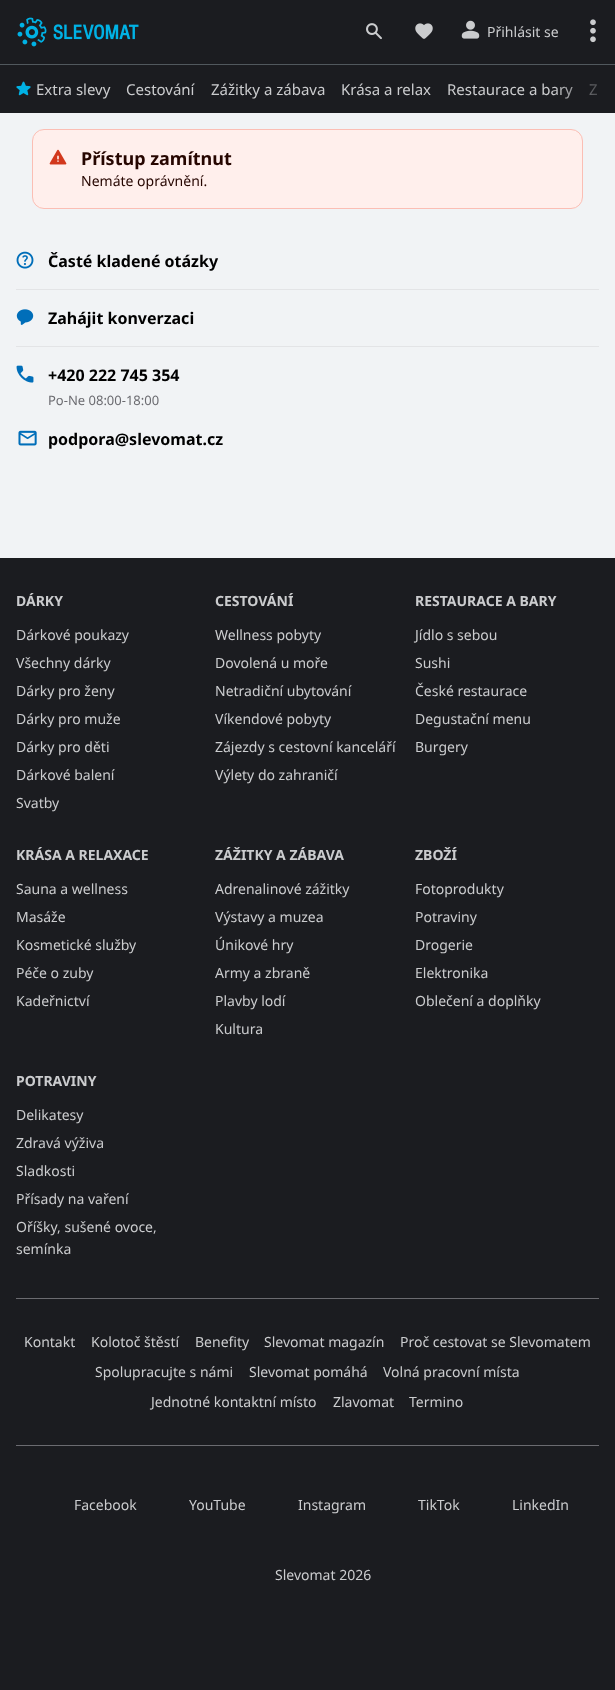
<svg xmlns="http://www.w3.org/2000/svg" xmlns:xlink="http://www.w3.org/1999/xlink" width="615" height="1690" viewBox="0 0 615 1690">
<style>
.cls-1{font:14px Noto Sans;fill:#cbccce}
.cls-2{font:15px Noto Sans;fill:#cbccce}
.cls-3{font:bold 18px Noto Sans;fill:#260600}
.cls-4{font:14px Noto Sans;fill:#260600}
.cls-5{font:bold 16px Noto Sans;fill:#000000}
.cls-6{font:13px Noto Sans;fill:#6b6b70}
.cls-7{font:bold 14px Noto Sans;fill:#cbccce}
</style>
<defs>
<linearGradient id="g1" gradientUnits="userSpaceOnUse" x1="553" y1="89" x2="615" y2="89"><stop offset="0" stop-color="#1b1c20" stop-opacity="0"/><stop offset="1" stop-color="#1b1c20"/></linearGradient>
</defs>
<rect width="100%" height="100%" fill="#f1f3f5"/>
<rect fill="#1b1c20" x="0" y="0" width="615" height="64"/>
<image xlink:href="image0.png" x="17" y="17" width="122" height="30"/>
<image xlink:href="image1.png" x="366" y="23" width="16" height="17"/>
<image xlink:href="image2.png" x="415" y="23" width="18" height="16"/>
<image xlink:href="image3.png" x="461" y="20" width="19" height="19"/>
<image xlink:href="image4.png" x="590" y="19" width="6" height="24"/>
<rect fill="#1b1c20" x="0" y="65" width="615" height="48"/>
<rect fill="#51585d" x="0" y="64" width="615" height="1"/>
<image xlink:href="image5.png" x="16" y="81" width="15" height="15"/>
<rect fill="#ffefec" stroke="#fbbeb4" x="32.5" y="129.5" width="550" height="79" rx="11.5"/>
<image xlink:href="image6.png" x="49" y="149" width="18" height="16"/>
<image xlink:href="image7.png" x="16" y="251" width="18" height="18"/>
<rect fill="#e3e4e6" x="16" y="289" width="583" height="1"/>
<image xlink:href="image8.png" x="16" y="309" width="18" height="16"/>
<rect fill="#e3e4e6" x="16" y="346" width="583" height="1"/>
<image xlink:href="image9.png" x="16" y="365" width="18" height="18"/>
<image xlink:href="image10.png" x="18" y="430" width="19" height="16"/>
<rect fill="#1b1c20" x="0" y="558" width="615" height="1132"/>
<rect fill="#6b6b70" x="16" y="1298" width="583" height="1"/>
<rect fill="#6b6b70" x="16" y="1445" width="583" height="1"/>
<text class="cls-1" x="487" y="37">Přihlásit se</text>
<text class="cls-2" x="36" y="95">Extra slevy</text>
<text class="cls-2" x="126" y="95">Cestování</text>
<text class="cls-2" x="211" y="95">Zážitky a zábava</text>
<text class="cls-2" x="341" y="95">Krása a relax</text>
<text class="cls-2" x="447" y="95">Restaurace a bary</text>
<text class="cls-2" x="589" y="95">Z</text>
<rect fill="url(#g1)" x="554" y="84" width="43" height="15"/>
<text class="cls-3" x="81" y="165">Přístup zamítnut</text>
<text class="cls-4" x="81" y="186">Nemáte oprávnění.</text>
<text class="cls-5" x="48" y="267">Časté kladené otázky</text>
<text class="cls-5" x="48" y="324">Zahájit konverzaci</text>
<text class="cls-5" x="48" y="381">+420 222 745 354</text>
<text class="cls-6" x="48" y="405">Po-Ne 08:00-18:00</text>
<text class="cls-5" x="48" y="445">podpora@slevomat.cz</text>
<text class="cls-7" x="16" y="606">DÁRKY</text>
<text class="cls-1" x="16" y="640">Dárkové poukazy</text>
<text class="cls-1" x="16" y="668">Všechny dárky</text>
<text class="cls-1" x="16" y="696">Dárky pro ženy</text>
<text class="cls-1" x="16" y="724">Dárky pro muže</text>
<text class="cls-1" x="16" y="752">Dárky pro děti</text>
<text class="cls-1" x="16" y="780">Dárkové balení</text>
<text class="cls-1" x="16" y="808">Svatby</text>
<text class="cls-7" x="215" y="606">CESTOVÁNÍ</text>
<text class="cls-1" x="215" y="640">Wellness pobyty</text>
<text class="cls-1" x="215" y="668">Dovolená u moře</text>
<text class="cls-1" x="215" y="696">Netradiční ubytování</text>
<text class="cls-1" x="215" y="724">Víkendové pobyty</text>
<text class="cls-1" x="215" y="752">Zájezdy s cestovní kanceláří</text>
<text class="cls-1" x="215" y="780">Výlety do zahraničí</text>
<text class="cls-7" x="415" y="606">RESTAURACE A BARY</text>
<text class="cls-1" x="415" y="640">Jídlo s sebou</text>
<text class="cls-1" x="415" y="668">Sushi</text>
<text class="cls-1" x="415" y="696">České restaurace</text>
<text class="cls-1" x="415" y="724">Degustační menu</text>
<text class="cls-1" x="415" y="752">Burgery</text>
<text class="cls-7" x="16" y="860">KRÁSA A RELAXACE</text>
<text class="cls-1" x="16" y="894">Sauna a wellness</text>
<text class="cls-1" x="16" y="922">Masáže</text>
<text class="cls-1" x="16" y="950">Kosmetické služby</text>
<text class="cls-1" x="16" y="978">Péče o zuby</text>
<text class="cls-1" x="16" y="1006">Kadeřnictví</text>
<text class="cls-7" x="215" y="860">ZÁŽITKY A ZÁBAVA</text>
<text class="cls-1" x="215" y="894">Adrenalinové zážitky</text>
<text class="cls-1" x="215" y="922">Výstavy a muzea</text>
<text class="cls-1" x="215" y="950">Únikové hry</text>
<text class="cls-1" x="215" y="978">Army a zbraně</text>
<text class="cls-1" x="215" y="1006">Plavby lodí</text>
<text class="cls-1" x="215" y="1034">Kultura</text>
<text class="cls-7" x="415" y="860">ZBOŽÍ</text>
<text class="cls-1" x="415" y="894">Fotoprodukty</text>
<text class="cls-1" x="415" y="922">Potraviny</text>
<text class="cls-1" x="415" y="950">Drogerie</text>
<text class="cls-1" x="415" y="978">Elektronika</text>
<text class="cls-1" x="415" y="1006">Oblečení a doplňky</text>
<text class="cls-7" x="16" y="1086">POTRAVINY</text>
<text class="cls-1" x="16" y="1120">Delikatesy</text>
<text class="cls-1" x="16" y="1148">Zdravá výživa</text>
<text class="cls-1" x="16" y="1176">Sladkosti</text>
<text class="cls-1" x="16" y="1204">Přísady na vaření</text>
<text class="cls-1"><tspan x="16" y="1232">Oříšky, sušené ovoce,</tspan><tspan x="16" y="1254">semínka</tspan></text>
<text class="cls-1" x="24" y="1347">Kontakt</text>
<text class="cls-1" x="91" y="1347">Kolotoč štěstí</text>
<text class="cls-1" x="195" y="1347">Benefity</text>
<text class="cls-1" x="264" y="1347">Slevomat magazín</text>
<text class="cls-1" x="400" y="1347">Proč cestovat se Slevomatem</text>
<text class="cls-1" x="95" y="1377">Spolupracujte s námi</text>
<text class="cls-1" x="249" y="1377">Slevomat pomáhá</text>
<text class="cls-1" x="383" y="1377">Volná pracovní místa</text>
<text class="cls-1" x="151" y="1407">Jednotné kontaktní místo</text>
<text class="cls-1" x="333" y="1407">Zlavomat</text>
<text class="cls-1" x="409" y="1407">Termino</text>
<text class="cls-1" x="74" y="1510">Facebook</text>
<text class="cls-1" x="189" y="1510">YouTube</text>
<text class="cls-1" x="298" y="1510">Instagram</text>
<text class="cls-1" x="418" y="1510">TikTok</text>
<text class="cls-1" x="512" y="1510">LinkedIn</text>
<text class="cls-1" x="275" y="1580">Slevomat 2026</text>
</svg>
